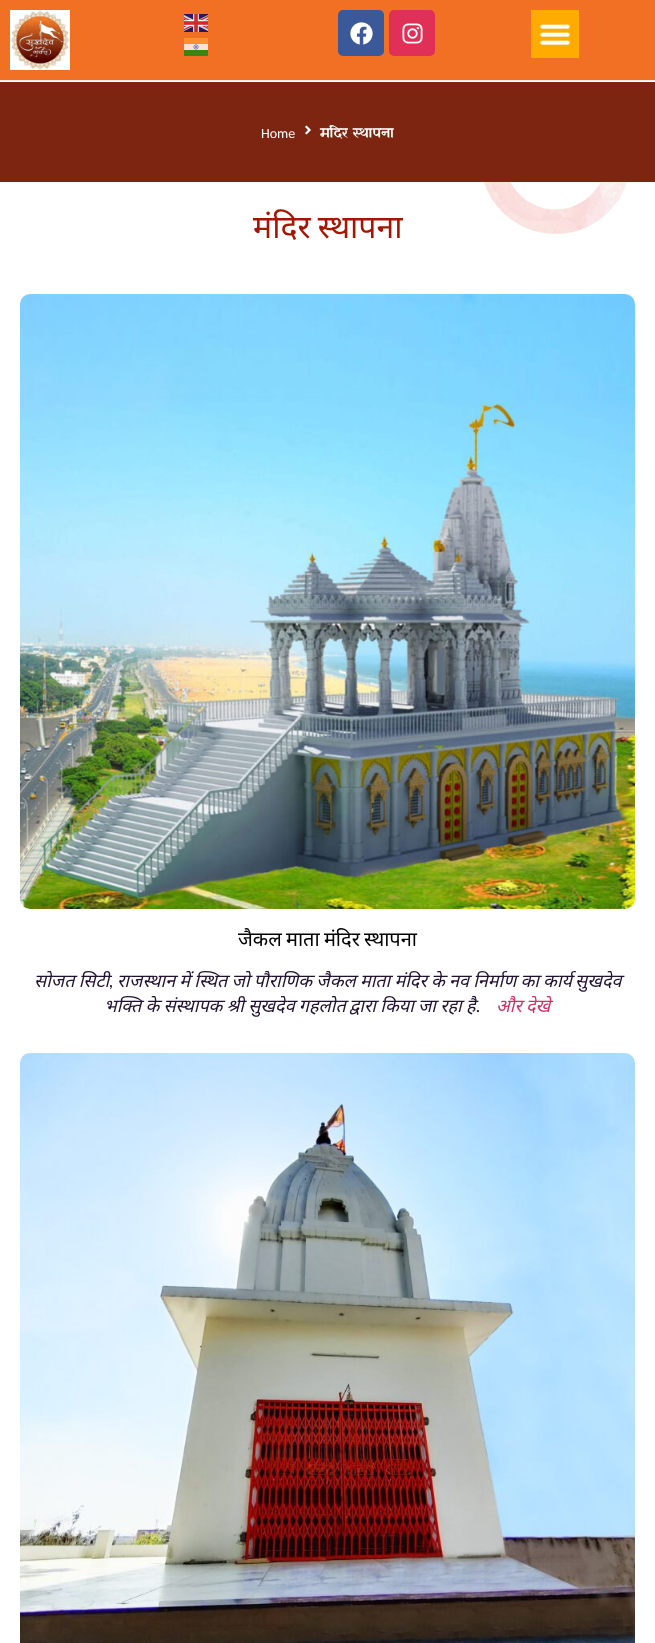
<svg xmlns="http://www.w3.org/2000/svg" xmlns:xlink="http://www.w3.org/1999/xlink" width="655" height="1643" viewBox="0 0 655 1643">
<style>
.cls-1{font:14px Carlito;fill:#ffffff}
.cls-2{font:14px Yatra One;fill:#ffffff}
.cls-3{font:32px Noto Sans;fill:#a41602}
.cls-4{font:20px Noto Sans;fill:#000000}
.cls-5{font:italic 18px Noto Sans;fill:#211031}
.cls-6{font:italic 18px Carlito;fill:#211031}
.cls-7{font:italic 18px Noto Sans;fill:#cc3366}
</style>
<rect width="100%" height="100%" fill="#ffffff"/>
<rect fill="#f17024" x="0" y="0" width="655" height="80"/>
<rect fill="#efefef" x="0" y="80" width="655" height="1"/>
<image xlink:href="image0.png" x="10" y="10" width="60" height="60"/>
<image xlink:href="image1.png" x="184" y="14" width="24" height="18"/>
<image xlink:href="image2.png" x="184" y="38" width="24" height="18"/>
<rect fill="#3b5998" x="338" y="10" width="46" height="46" rx="5"/>
<image xlink:href="image3.png" x="350" y="22" width="23" height="23"/>
<rect fill="#e13057" x="389" y="10" width="46" height="46" rx="5"/>
<image xlink:href="image4.png" x="402" y="23" width="21" height="21"/>
<rect fill="#ffab00" x="531" y="10" width="48" height="48"/>
<image xlink:href="image5.png" x="540" y="24" width="30" height="21"/>
<rect fill="#7d2510" x="0" y="82" width="655" height="100"/>
<image xlink:href="image6.png" x="305" y="125" width="6" height="10"/>
<image xlink:href="image7.png" x="484" y="182" width="143" height="52"/>
<image xlink:href="image8.png" x="20" y="294" width="615" height="615"/>
<image xlink:href="image9.png" x="20" y="1053" width="615" height="590"/>
<text class="cls-1" x="261" y="138">Home</text>
<text class="cls-2" x="320" y="137">मंदिर स्थापना</text>
<text class="cls-3" x="253" y="238" word-spacing="-1">मंदिर स्थापना</text>
<text class="cls-4" x="238" y="946" word-spacing="-1">जैकल माता मंदिर स्थापना</text>
<text class="cls-5" x="34" y="987" word-spacing="-0.5">सोजत सिटी</text>
<text class="cls-6" x="109" y="987">,</text>
<text class="cls-5" x="117" y="987" word-spacing="-0.5">राजस्थान में स्थित जो पौराणिक जैकल माता मंदिर के नव निर्माण का कार्य</text>
<text class="cls-5" x="575" y="987">सुखदेव</text>
<text class="cls-5" x="104" y="1012" word-spacing="-0.5">भक्ति के संस्थापक श्री सुखदेव गहलोत</text>
<text class="cls-5" x="349" y="1012" word-spacing="-0.5">द्वारा किया जा रहा है</text>
<text class="cls-7" x="496" y="1012" word-spacing="-0.5">और देखे</text>
<text class="cls-6" x="476" y="1012">.</text>
</svg>
